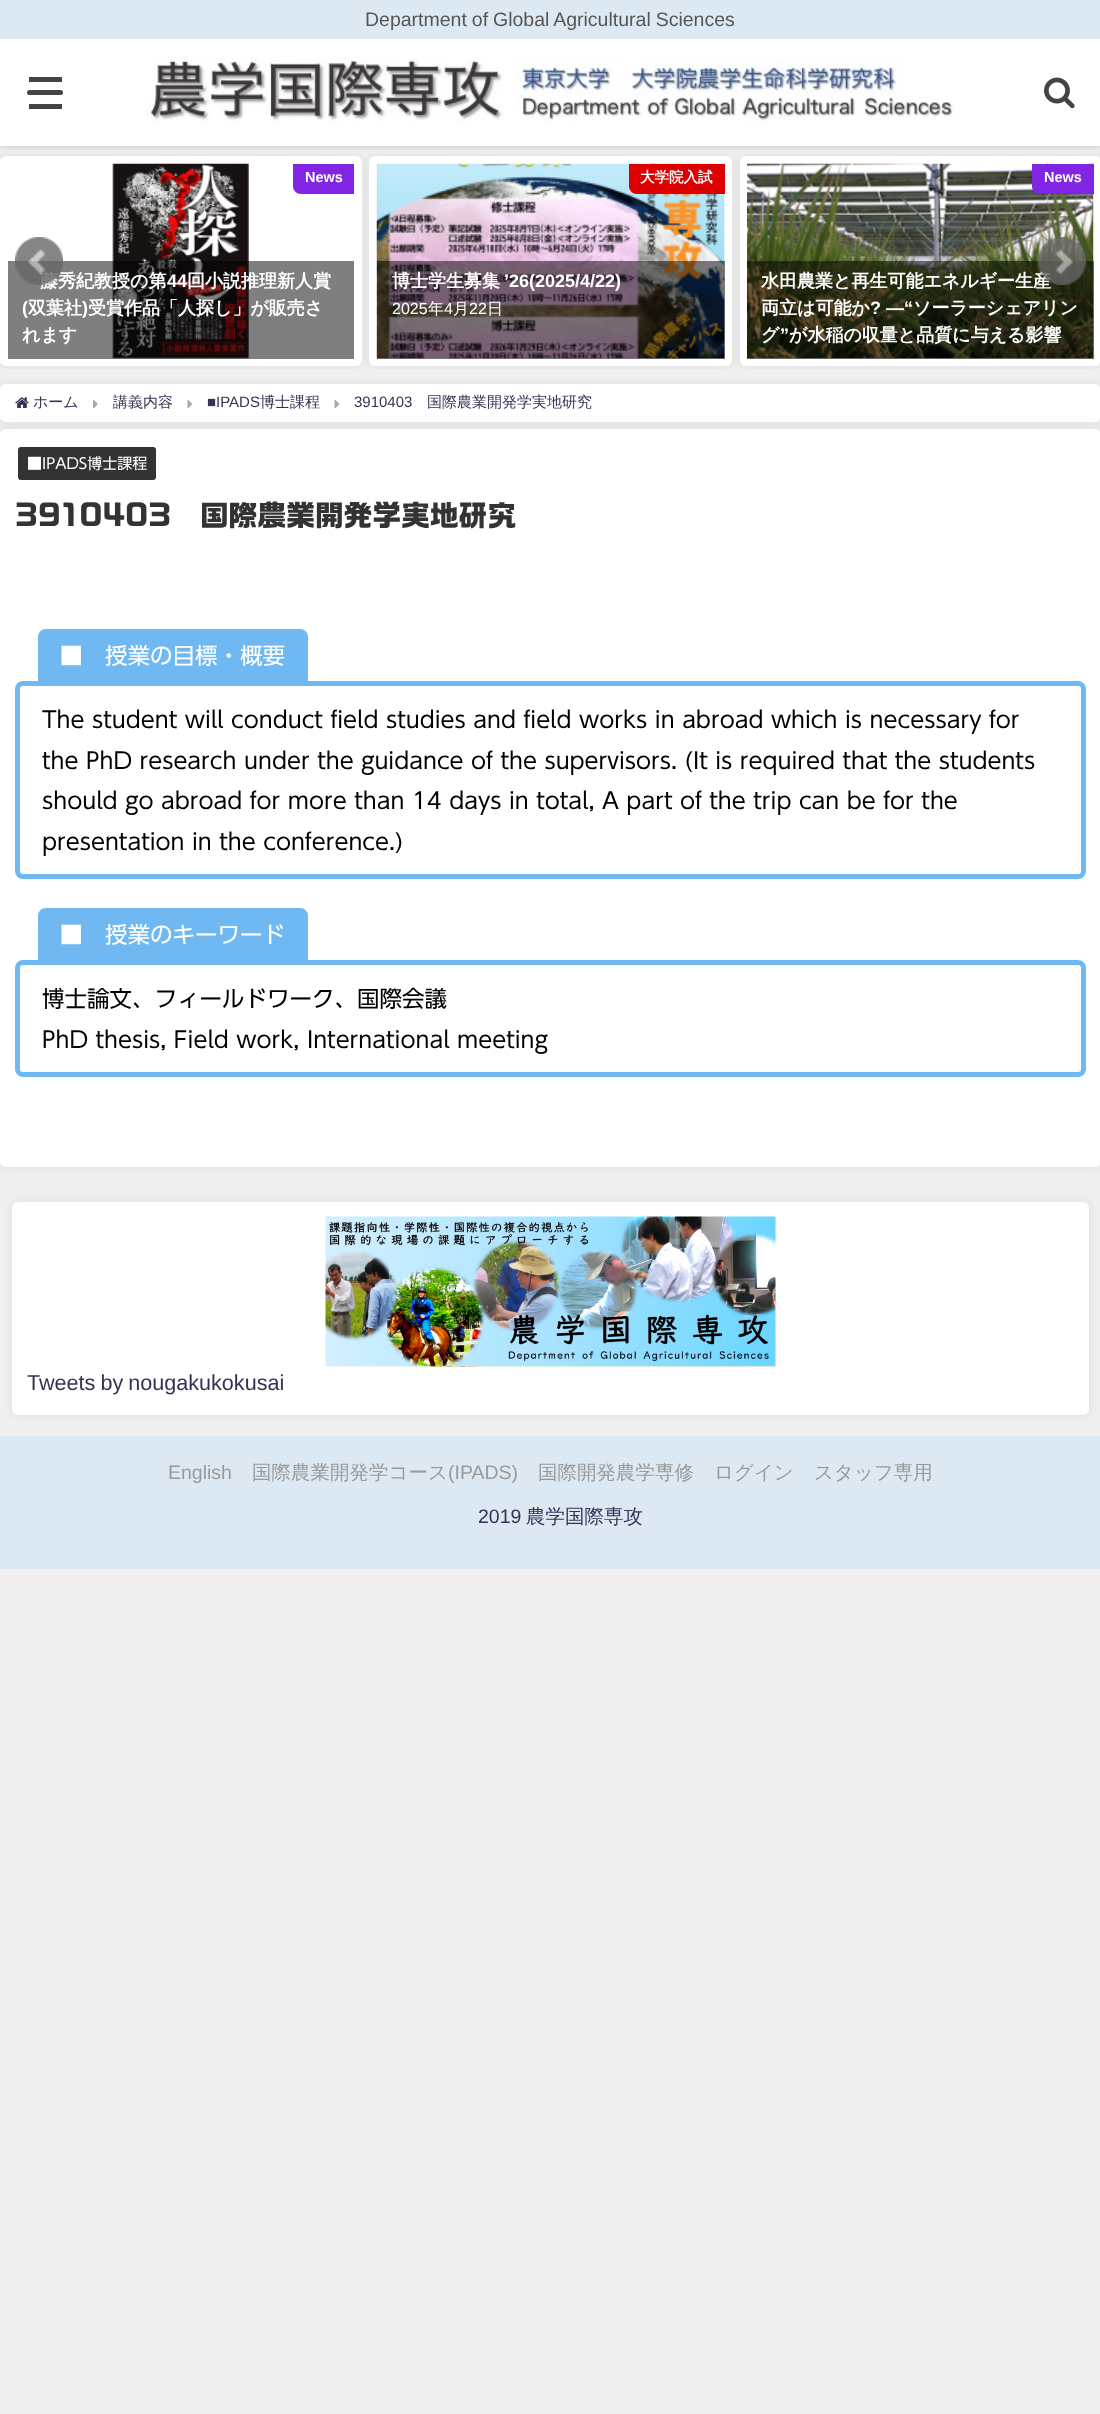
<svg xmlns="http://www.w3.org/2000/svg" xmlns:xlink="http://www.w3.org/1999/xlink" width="1100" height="2414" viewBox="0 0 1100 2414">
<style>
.cls-1{font:19.5px Liberation Sans;fill:#565656}
.cls-2{font:bold 14.5px Liberation Sans;fill:#ffffff}
.cls-3{font:bold 18px WenQuanYi Zen Hei;fill:#ffffff}
.cls-4{font:bold 18px Liberation Sans;fill:#ffffff}
.cls-5{font:bold 14.5px WenQuanYi Zen Hei;fill:#ffffff}
.cls-6{font:16px Liberation Sans;fill:#ffffff}
.cls-7{font:500 16px WenQuanYi Zen Hei;fill:#ffffff}
.cls-8{font:500 15px WenQuanYi Zen Hei;fill:#333355}
.cls-9{font:15px Liberation Sans;fill:#333355}
.cls-10{font:15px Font;fill:#ffffff}
.cls-11{font:28.75px 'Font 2';fill:#333333}
.cls-12{font:22.5px Font;fill:#ffffff}
.cls-13{font:22.5px Font;fill:#000000}
.cls-14{font:21.6px Liberation Sans;fill:#333355}
.cls-15{font:19.5px Liberation Sans;fill:#999999}
.cls-16{font:500 19.5px WenQuanYi Zen Hei;fill:#999999}
.cls-17{font:19.5px Liberation Sans;fill:#333355}
.cls-18{font:500 19.5px WenQuanYi Zen Hei;fill:#333355}
</style>
<defs>
<clipPath id="clip1"><rect x="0" y="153" width="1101" height="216"/></clipPath>
</defs>
<rect width="100%" height="100%" fill="#efefef"/>
<rect fill="#000000" fill-opacity="0.2" filter="blur(3px)" x="0" y="0" width="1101" height="146"/>
<g clip-path="url(#clip1)">
<rect fill="#969696" fill-opacity="0.2" filter="blur(4px)" x="0" y="156" width="362" height="210" rx="6"/>
</g>
<rect fill="#ffffff" x="0" y="156" width="362" height="210" rx="6"/>
<g clip-path="url(#clip1)">
<rect fill="#969696" fill-opacity="0.2" filter="blur(4px)" x="369" y="156" width="363" height="210" rx="6"/>
</g>
<rect fill="#ffffff" x="369" y="156" width="363" height="210" rx="6"/>
<g clip-path="url(#clip1)">
<rect fill="#969696" fill-opacity="0.2" filter="blur(4px)" x="740" y="156" width="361" height="210" rx="6"/>
</g>
<rect fill="#ffffff" x="0" y="39" width="1100" height="107"/>
<rect fill="#dce9f2" x="0" y="0" width="1100" height="39"/>
<rect fill="#444444" x="29" y="77" width="33" height="5"/>
<rect fill="#444444" x="27" y="90" width="36" height="5" rx="2.5"/>
<rect fill="#444444" x="29" y="104" width="33" height="5"/>
<image xlink:href="image0.png" x="146" y="57" width="807" height="65"/>
<image xlink:href="image1.png" x="1044" y="77" width="31" height="32"/>
<image xlink:href="image2.png" x="112" y="163" width="137" height="196"/>
<path fill="#8224e3" d="M293 164H354V194H301C296.5 194 293 190.5 293 186Z"/>
<rect fill="#000000" fill-opacity="0.5" x="8" y="261" width="346" height="98"/>
<image xlink:href="image3.png" x="376" y="163" width="349" height="196"/>
<path fill="#dd0000" d="M629 164H725V194H637C632.5 194 629 190.5 629 186Z"/>
<rect fill="#000000" fill-opacity="0.5" x="377" y="261" width="348" height="98"/>
<rect fill="#ffffff" x="740" y="156" width="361" height="210" rx="6"/>
<image xlink:href="image4.png" x="747" y="163" width="347" height="196"/>
<path fill="#8224e3" d="M1032 164H1094V194H1040C1035.5 194 1032 190.5 1032 186Z"/>
<rect fill="#000000" fill-opacity="0.5" x="747" y="261" width="347" height="98"/>
<rect fill="#969696" fill-opacity="0.2" filter="blur(4px)" x="0" y="384" width="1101" height="38" rx="6"/>
<rect fill="#ffffff" x="0" y="384" width="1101" height="38" rx="6"/>
<image xlink:href="image7.png" x="15" y="397" width="14" height="11"/>
<image xlink:href="image8.png" x="93" y="400" width="5" height="9"/>
<image xlink:href="image9.png" x="187" y="400" width="6" height="9"/>
<image xlink:href="image9.png" x="334" y="400" width="6" height="9"/>
<rect fill="#969696" fill-opacity="0.2" filter="blur(4px)" x="0" y="429" width="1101" height="738" rx="6"/>
<rect fill="#ffffff" x="0" y="429" width="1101" height="738" rx="6"/>
<rect fill="#333333" x="18" y="447" width="138" height="33" rx="3"/>
<path fill="#70b8f1" d="M46 629H300C304.5 629 308 632.5 308 637V683H38V637C38 632.5 41.5 629 46 629Z"/>
<rect fill="#ffffff" stroke="#70b8f1" stroke-width="5" x="17.5" y="683.5" width="1066" height="193" rx="5.5"/>
<path fill="#70b8f1" d="M46 908H300C304.5 908 308 911.5 308 916V962H38V916C38 911.5 41.5 908 46 908Z"/>
<rect fill="#ffffff" stroke="#70b8f1" stroke-width="5" x="17.5" y="962.5" width="1066" height="112" rx="5.5"/>
<rect fill="#969696" fill-opacity="0.2" filter="blur(4px)" x="12" y="1202" width="1077" height="213" rx="6"/>
<rect fill="#ffffff" x="12" y="1202" width="1077" height="213" rx="6"/>
<image xlink:href="image10.png" x="325" y="1216" width="451" height="151"/>
<rect fill="#dce9f2" x="0" y="1436" width="1100" height="133"/>
<text class="cls-1" x="365" y="26" word-spacing="-0.5">Department of Global Agricultural Sciences</text>
<text class="cls-2" x="305" y="182">News</text>
<text class="cls-3" x="40" y="287">藤秀紀教授の第</text>
<text class="cls-4" x="167" y="287">44</text>
<text class="cls-3" x="187" y="287">回小説推理新人賞</text>
<text class="cls-4" x="22" y="314">(</text>
<text class="cls-3" x="28" y="314">双葉社</text>
<text class="cls-4" x="82" y="314">)</text>
<text class="cls-3" x="88" y="314">受賞作品「人探し」が販売さ</text>
<text class="cls-3" x="22" y="341">れます</text>
<text class="cls-5" x="640" y="182">大学院入試</text>
<text class="cls-3" x="392" y="287">博士学生募集</text>
<text class="cls-4" x="504" y="287">’26(2025/4/22)</text>
<text class="cls-6" x="392" y="314">2025</text>
<text class="cls-7" x="428" y="314">年</text>
<text class="cls-6" x="444" y="314">4</text>
<text class="cls-7" x="453" y="314">月</text>
<text class="cls-6" x="469" y="314">22</text>
<text class="cls-7" x="487" y="314">日</text>
<text class="cls-2" x="1044" y="182">News</text>
<text class="cls-3"><tspan x="761" y="287">水田農業と再生可能エネルギー生産</tspan><tspan x="761" y="314">両立は可能か</tspan></text>
<text class="cls-4" x="870" y="314">? ―“</text>
<text class="cls-3" x="913" y="314">ソーラーシェアリン</text>
<text class="cls-3" x="761" y="341">グ</text>
<text class="cls-4" x="780" y="341">”</text>
<text class="cls-3" x="789" y="341">が水稲の収量と品質に与える影響</text>
<image xlink:href="image5.png" x="15" y="237" width="48" height="48"/>
<image xlink:href="image6.png" x="1038" y="237" width="48" height="48"/>
<text class="cls-8" x="33" y="407">ホーム</text>
<text class="cls-8" x="113" y="407">講義内容</text>
<text class="cls-9" x="207" y="407">■IPADS</text>
<text class="cls-8" x="260" y="407">博士課程</text>
<text class="cls-9" x="354" y="407">3910403</text>
<text class="cls-8" x="427" y="407">国際農業開発学実地研究</text>
<text class="cls-10" x="27" y="469">■IPADS博士課程</text>
<text class="cls-11" x="15" y="526">3910403　国際農業開発学実地研究</text>
<text class="cls-12" x="60" y="664">■　授業の目標・概要</text>
<text class="cls-13"><tspan x="42" y="728">The student will conduct field studies and field works in abroad which is necessary for</tspan><tspan x="42" y="769">the PhD research under the guidance of the supervisors. (It is required that the students</tspan><tspan x="42" y="809">should go abroad for more than 14 days in total, A part of the trip can be for the</tspan><tspan x="42" y="850">presentation in the conference.)</tspan></text>
<text class="cls-12" x="60" y="943">■　授業のキーワード</text>
<text class="cls-13"><tspan x="42" y="1007">博士論文、フィールドワーク、国際会議</tspan><tspan x="42" y="1048">PhD thesis, Field work, International meeting</tspan></text>
<text class="cls-14" x="27" y="1390" word-spacing="-1">Tweets by nougakukokusai</text>
<text class="cls-15" x="168" y="1479">English</text>
<text class="cls-16" x="252" y="1479">国際農業開発学コース</text>
<text class="cls-15" x="448" y="1479">(IPADS)</text>
<text class="cls-16" x="538" y="1479">国際開発農学専修</text>
<text class="cls-16" x="714" y="1479">ログイン</text>
<text class="cls-16" x="814" y="1479">スタッフ専用</text>
<text class="cls-17" x="478" y="1523">2019</text>
<text class="cls-18" x="526" y="1523">農学国際専攻</text>
</svg>
